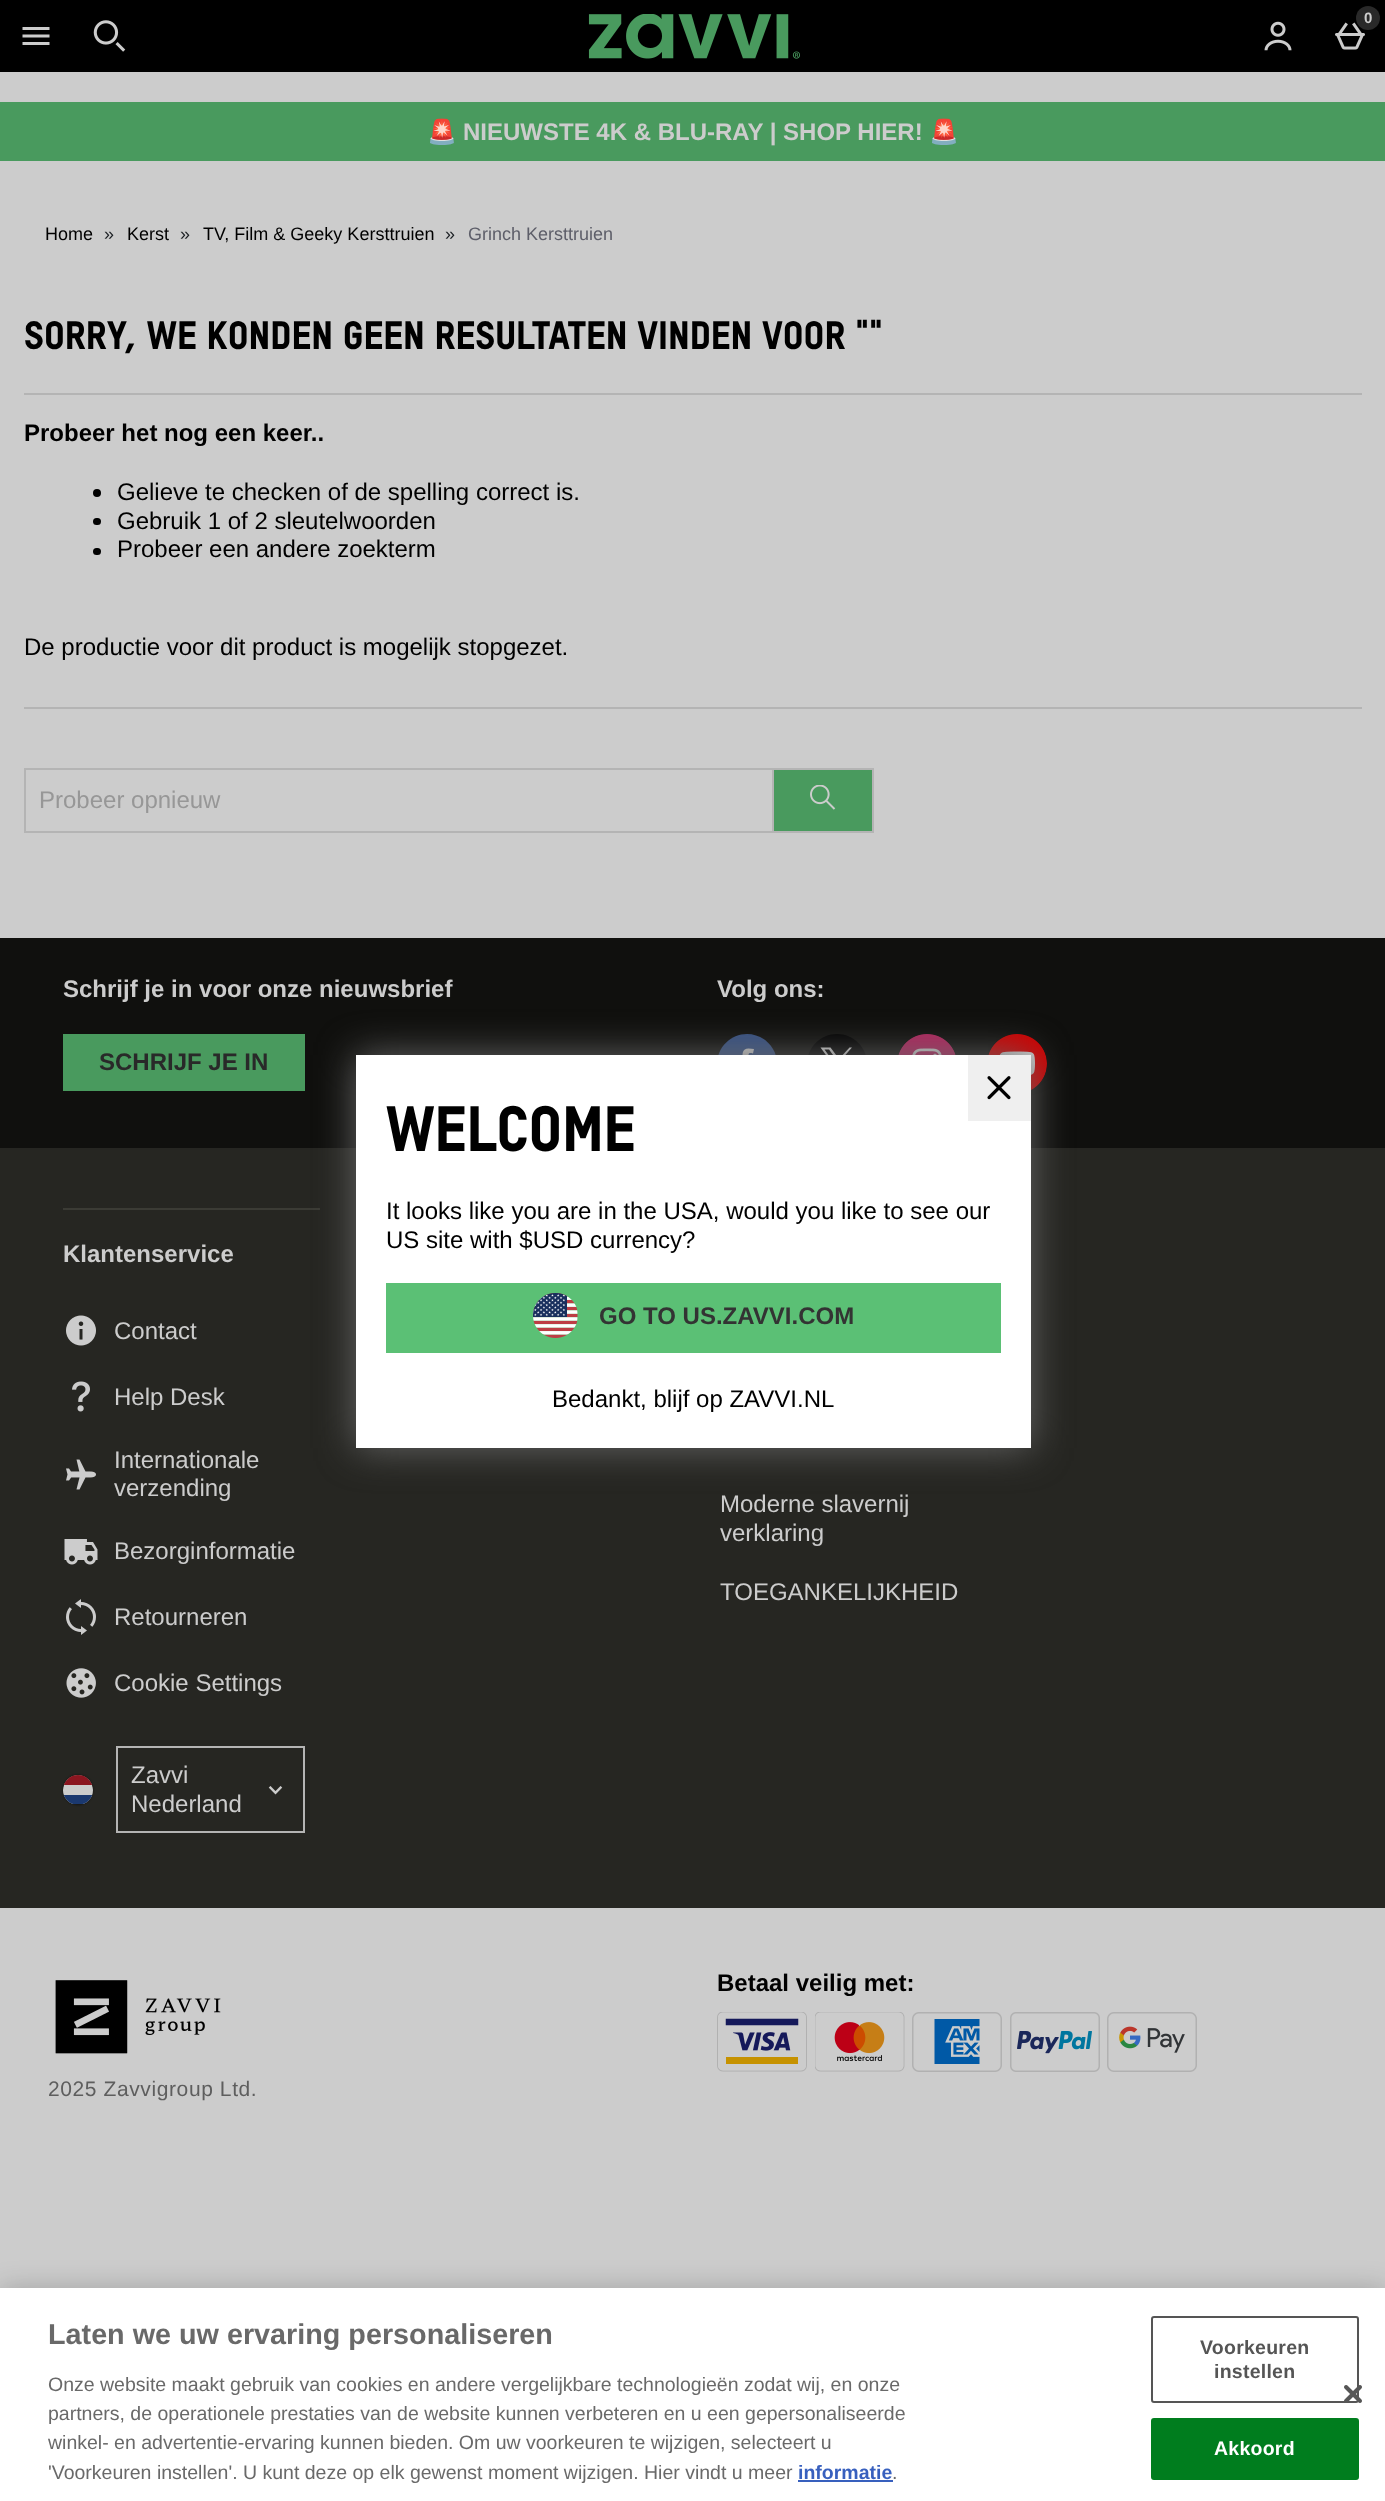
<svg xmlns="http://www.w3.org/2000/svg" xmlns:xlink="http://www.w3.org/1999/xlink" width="1385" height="2501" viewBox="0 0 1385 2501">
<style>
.cls-1{font:bold 15px Liberation Sans;fill:#cccccc}
.cls-2{font:bold 24px Noto Color Emoji;fill:#cccccc}
.cls-3{font:bold 24px Liberation Sans;fill:#cccccc}
.cls-4{font:18px Liberation Sans;fill:#000000}
.cls-5{font:18px Liberation Sans;fill:#1b1f23}
.cls-6{font:18px Liberation Sans;fill:#5d5e69}
.cls-7{font:900 39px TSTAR;fill:#000000}
.cls-8{font:bold 24px Liberation Sans;fill:#000000}
.cls-9{font:24px Liberation Sans;fill:#000000}
.cls-10{font:24px Liberation Sans;fill:#979797}
.cls-11{font:bold 24px Liberation Sans;fill:#292929}
.cls-12{font:24px Liberation Sans;fill:#cccccc}
.cls-13{font:21px Liberation Sans;letter-spacing:0.6px;fill:#5e5e5e}
.cls-14{font:900 63px TSTAR;fill:#000000}
.cls-15{font:bold 24px Liberation Sans;fill:#333333}
.cls-16{font:bold 28.75px Liberation Sans;fill:#696969}
.cls-17{font:19.5px Liberation Sans;fill:#696969}
.cls-18{font:bold 19.5px Liberation Sans;fill:#3860be}
.cls-19{font:bold 19.5px Liberation Sans;letter-spacing:0.25px;fill:#555555}
.cls-20{font:bold 19.5px Liberation Sans;letter-spacing:0.25px;fill:#ffffff}
</style>
<defs>
<clipPath id="clip1"><rect x="63" y="1775" width="30" height="30" rx="15"/></clipPath>
</defs>
<rect width="100%" height="100%" fill="#cccccc"/>
<rect fill="#000000" x="0" y="0" width="1385" height="72"/>
<image xlink:href="image0.png" x="22" y="27" width="28" height="18"/>
<image xlink:href="image1.png" x="93" y="20" width="33" height="32"/>
<image xlink:href="image2.png" x="588" y="14" width="212" height="45"/>
<image xlink:href="image3.png" x="1264" y="21" width="28" height="30"/>
<image xlink:href="image4.png" x="1335" y="22" width="30" height="28"/>
<circle fill="#292929" cx="1368" cy="18" r="12"/>
<rect fill="#499a5e" x="0" y="102" width="1385" height="59"/>
<rect fill="#b4b4b4" x="24" y="393" width="1338" height="2"/>
<circle fill="#000000" cx="97" cy="493" r="4"/>
<rect fill="#000000" x="93" y="518" width="8" height="7" rx="3.5"/>
<rect fill="#000000" x="93" y="548" width="8" height="7" rx="3.5"/>
<rect fill="#b4b4b4" x="24" y="707" width="1338" height="2"/>
<rect fill="none" stroke="#b4b4b4" stroke-width="2" x="25" y="769" width="748" height="63"/>
<rect fill="#499a5e" x="774" y="770" width="98" height="61"/>
<rect fill="#b4b4b4" x="774" y="768" width="99" height="2"/>
<rect fill="#b4b4b4" x="872" y="768" width="2" height="65"/>
<rect fill="#b4b4b4" x="774" y="831" width="99" height="2"/>
<image xlink:href="image5.png" x="810" y="785" width="26" height="25"/>
<rect fill="#10100e" x="0" y="938" width="1385" height="210"/>
<rect fill="#499a5e" x="63" y="1034" width="242" height="57"/>
<path fill="#375182" d="M747 1034C763 1034 777 1047 777 1064C777 1080 763 1094 747 1094C731 1094 717 1080 717 1064C717 1047 731 1034 747 1034Z"/>
<path fill="#cccccc" d="M742.5 1058.5C742.5 1054 742 1048.5 748.5 1048.5L754 1049L753 1053.5C748 1052 748.5 1054 748.5 1058.5H753.5L753 1063H748.5V1078.5H742.5V1063H739.5V1058.5Z"/>
<path fill="#000000" d="M837 1034C853 1034 867 1047 867 1064C867 1080 853 1094 837 1094C821 1094 807 1080 807 1064C807 1047 821 1034 837 1034Z"/>
<path fill="#cccccc" d="M840 1061L852 1047.5H849.5L839 1059L830.5 1047.5H820.5L833.5 1065.5L820.5 1079.5H823.5L834.5 1067L843.5 1079.5H853.5ZM836 1065.5L824.5 1049.5H829L849.5 1077.5H845Z"/>
<image xlink:href="image6.png" x="898" y="1034" width="58" height="21"/>
<image xlink:href="image7.png" x="988" y="1034" width="59" height="56"/>
<rect fill="#262622" x="0" y="1148" width="1385" height="760"/>
<rect fill="#3b3b35" x="63" y="1208" width="257" height="2"/>
<image xlink:href="image8.png" x="66" y="1315" width="30" height="31"/>
<image xlink:href="image9.png" x="72" y="1381" width="18" height="31"/>
<image xlink:href="image10.png" x="66" y="1459" width="30" height="31"/>
<image xlink:href="image11.png" x="64" y="1539" width="34" height="26"/>
<image xlink:href="image12.png" x="66" y="1599" width="30" height="36"/>
<image xlink:href="image13.png" x="66" y="1668" width="30" height="30"/>
<rect fill="#000000" fill-opacity="0.5" filter="blur(1px)" x="63" y="1775" width="30" height="30" rx="15"/>
<g clip-path="url(#clip1)">
<path fill="#cccccc" d="M78 1775C86.5 1775 93 1781.5 93 1790V1804H63V1790C63 1781.5 69.5 1775 78 1775Z"/>
<rect fill="#1a386f" x="64" y="1795" width="28" height="9"/>
<rect fill="#8b1620" x="64" y="1775" width="28" height="10"/>
</g>
<rect fill="none" stroke="#b4b4b4" stroke-width="2" x="117" y="1747" width="187" height="85"/>
<image xlink:href="image14.png" x="268" y="1786" width="15" height="9"/>
<image xlink:href="image15.png" x="717" y="2012" width="90" height="60"/>
<image xlink:href="image16.png" x="815" y="2012" width="90" height="60"/>
<image xlink:href="image17.png" x="912" y="2012" width="90" height="60"/>
<image xlink:href="image18.png" x="1010" y="2012" width="90" height="60"/>
<image xlink:href="image19.png" x="1107" y="2012" width="90" height="60"/>
<image xlink:href="image20.png" x="55" y="1980" width="166" height="74"/>
<rect fill="#666666" filter="blur(19px)" x="356" y="1055" width="675" height="393"/>
<rect fill="#ffffff" x="356" y="1055" width="675" height="393"/>
<rect fill="#efefef" x="968" y="1055" width="63" height="66"/>
<image xlink:href="image21.png" x="987" y="1076" width="24" height="24"/>
<rect fill="#5bc075" x="386" y="1283" width="615" height="70"/>
<image xlink:href="image22.png" x="533" y="1293" width="45" height="45"/>
<rect fill="#000000" fill-opacity="0.2" filter="blur(13.5px)" x="0" y="2288" width="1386" height="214"/>
<rect fill="#ffffff" x="0" y="2288" width="1385" height="213"/>
<rect fill="#3860be" x="798" y="2480" width="95" height="2"/>
<rect fill="none" stroke="#555555" stroke-width="2" x="1152" y="2317" width="206" height="85" rx="2"/>
<rect fill="#007d1e" stroke="#007d1e" stroke-width="2" x="1152" y="2419" width="206" height="60" rx="2"/>
<image xlink:href="image23.png" x="1344" y="2385" width="18" height="18"/>
<text class="cls-1" x="1364" y="23">0</text>
<text class="cls-2" x="427" y="140">🚨</text>
<text class="cls-3" x="463" y="140">NIEUWSTE 4K &amp; BLU-RAY | SHOP HIER!</text>
<text class="cls-2" x="929" y="140">🚨</text>
<text class="cls-4" x="45" y="240">Home</text>
<text class="cls-5" x="104" y="240">»</text>
<text class="cls-4" x="127" y="240">Kerst</text>
<text class="cls-5" x="180" y="240">»</text>
<text class="cls-4" x="203" y="240">TV, Film &amp; Geeky Kersttruien</text>
<text class="cls-5" x="445" y="240">»</text>
<text class="cls-6" x="468" y="240">Grinch Kersttruien</text>
<text class="cls-7" x="24" y="349">SORRY, WE KONDEN GEEN RESULTATEN VINDEN VOOR ""</text>
<text class="cls-8" x="24" y="441">Probeer het nog een keer..</text>
<text class="cls-9"><tspan x="117" y="500">Gelieve te checken of de spelling correct is.</tspan><tspan x="117" y="529">Gebruik 1 of 2 sleutelwoorden</tspan><tspan x="117" y="557">Probeer een andere zoekterm</tspan></text>
<text class="cls-9" x="24" y="655">De productie voor dit product is mogelijk stopgezet.</text>
<text class="cls-10" x="39" y="808">Probeer opnieuw</text>
<text class="cls-3" x="63" y="997">Schrijf je in voor onze nieuwsbrief</text>
<text class="cls-11" x="99" y="1070">SCHRIJF JE IN</text>
<text class="cls-3" x="717" y="997">Volg ons:</text>
<text class="cls-3" x="63" y="1262">Klantenservice</text>
<text class="cls-12" x="114" y="1339">Contact</text>
<text class="cls-12" x="114" y="1405">Help Desk</text>
<text class="cls-12"><tspan x="114" y="1468">Internationale</tspan><tspan x="114" y="1496">verzending</tspan></text>
<text class="cls-12" x="114" y="1559">Bezorginformatie</text>
<text class="cls-12" x="114" y="1625">Retourneren</text>
<text class="cls-12" x="114" y="1691">Cookie Settings</text>
<text class="cls-12"><tspan x="131" y="1783">Zavvi</tspan><tspan x="131" y="1812">Nederland</tspan></text>
<text class="cls-12"><tspan x="720" y="1512">Moderne slavernij</tspan><tspan x="720" y="1541">verklaring</tspan></text>
<text class="cls-12" x="720" y="1600">TOEGANKELIJKHEID</text>
<text class="cls-8" x="717" y="1991">Betaal veilig met:</text>
<text class="cls-13" x="48" y="2096">2025 Zavvigroup Ltd.</text>
<text class="cls-14" x="386" y="1151">WELCOME</text>
<text class="cls-9"><tspan x="386" y="1219">It looks like you are in the USA, would you like to see our</tspan><tspan x="386" y="1248">US site with $USD currency?</tspan></text>
<text class="cls-15" x="599" y="1324">GO TO US.ZAVVI.COM</text>
<text class="cls-9" x="552" y="1407">Bedankt, blijf op ZAVVI.NL</text>
<text class="cls-16" x="48" y="2344">Laten we uw ervaring personaliseren</text>
<text class="cls-17"><tspan x="48" y="2391">Onze website maakt gebruik van cookies en andere vergelijkbare technologieën zodat wij, en onze</tspan><tspan x="48" y="2420">partners, de operationele prestaties van de website kunnen verbeteren en u een gepersonaliseerde</tspan><tspan x="48" y="2449">winkel- en advertentie-ervaring kunnen bieden. Om uw voorkeuren te wijzigen, selecteert u</tspan><tspan x="48" y="2479">'Voorkeuren instellen'. U kunt deze op elk gewenst moment wijzigen. Hier vindt u meer</tspan></text>
<text class="cls-18" x="798" y="2479">informatie</text>
<text class="cls-17" x="892" y="2479">.</text>
<text class="cls-19" x="1200" y="2354">Voorkeuren</text>
<text class="cls-19" x="1214" y="2378">instellen</text>
<text class="cls-20" x="1214" y="2455">Akkoord</text>
</svg>
